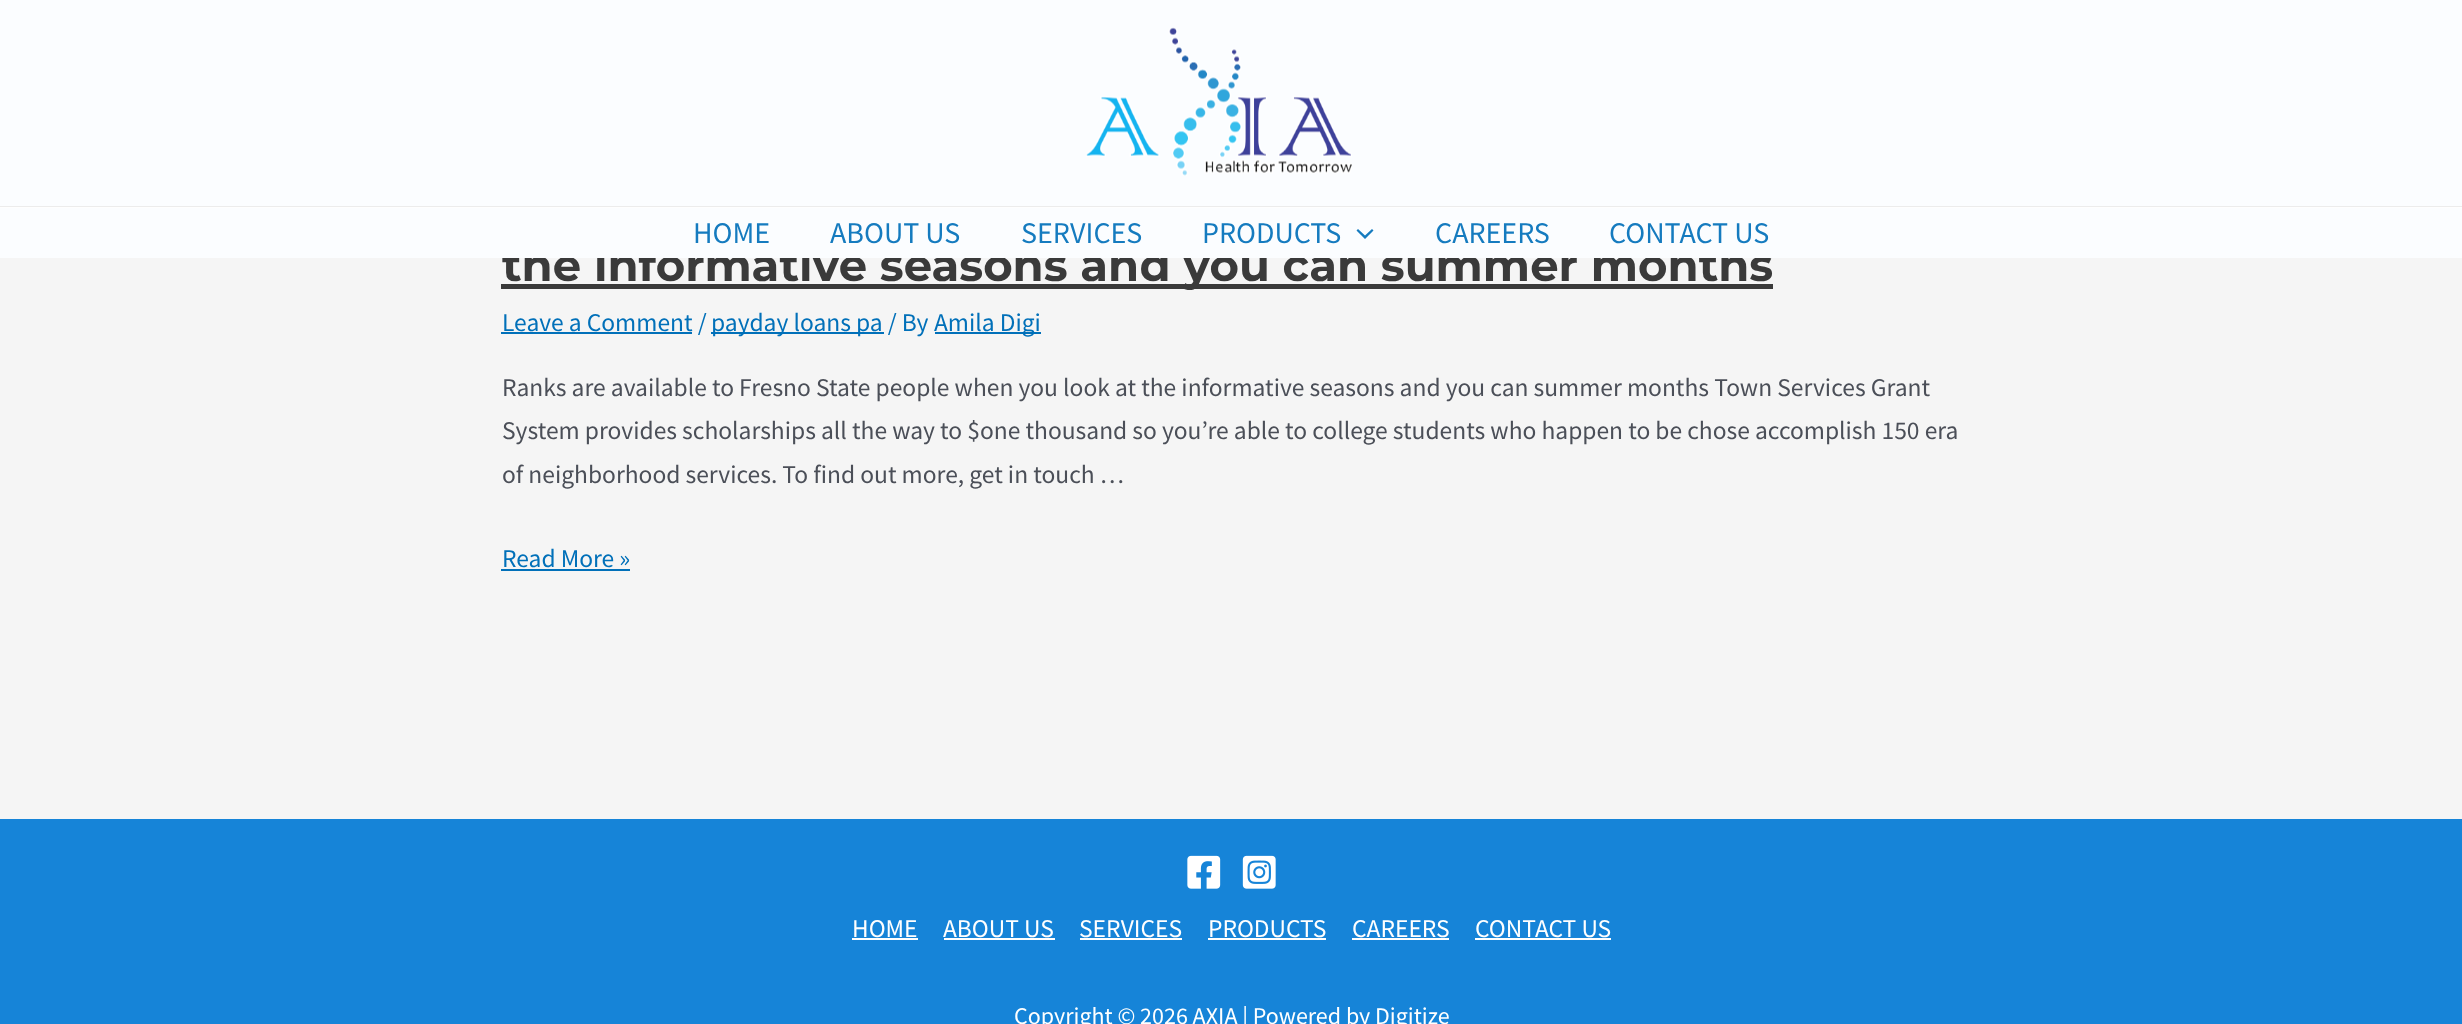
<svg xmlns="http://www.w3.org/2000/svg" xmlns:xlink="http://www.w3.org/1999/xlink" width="2462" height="1024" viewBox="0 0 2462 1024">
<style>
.cls-1{font:100 45px Montserrat;fill:#3a3a3a}
.cls-2{font:30px Source Sans Pro;fill:#157bbf}
.cls-3{font:25.5px Source Sans Pro;fill:#0170b9}
.cls-4{font:25.5px Source Sans Pro;fill:#4b4f58}
.cls-5{font:25.5px Source Sans Pro;fill:#ffffff}
.cls-6{font:24px Source Sans Pro;fill:#ffffff}
</style>
<rect width="100%" height="100%" fill="#f5f5f5"/>
<rect fill="#fbfdff" x="0" y="0" width="2462" height="207"/>
<image xlink:href="image0.png" x="1086" y="27" width="266" height="149"/>
<rect fill="#3a3a3a" x="501" y="225" width="1418" height="5"/>
<rect fill="#3a3a3a" x="501" y="284" width="1272" height="5"/>
<rect fill="#0170b9" x="501" y="332" width="191" height="2"/>
<rect fill="#0170b9" x="711" y="332" width="173" height="2"/>
<rect fill="#0170b9" x="935" y="332" width="106" height="2"/>
<rect fill="#0170b9" x="501" y="569" width="129" height="2"/>
<rect fill="#1684d8" x="0" y="819" width="2462" height="205"/>
<image xlink:href="image1.png" x="1187" y="855" width="34" height="34"/>
<image xlink:href="image2.png" x="1242" y="855" width="34" height="34"/>
<rect fill="#ffffff" x="852" y="938" width="66" height="2"/>
<rect fill="#ffffff" x="944" y="938" width="111" height="2"/>
<rect fill="#ffffff" x="1080" y="938" width="102" height="2"/>
<rect fill="#ffffff" x="1208" y="938" width="118" height="2"/>
<rect fill="#ffffff" x="1352" y="938" width="97" height="2"/>
<rect fill="#ffffff" x="1475" y="938" width="136" height="2"/>
<text class="cls-1" x="502" y="281">the informative seasons and you can summer months</text>
<rect fill="#cee4ff" fill-opacity="0.92" x="0" y="207" width="2462" height="51"/>
<rect fill="#cee4ff" fill-opacity="0.92" x="0" y="207" width="2462" height="51"/>
<rect fill="#eaeaea" fill-opacity="0.92" x="0" y="206" width="2462" height="2"/>
<rect fill="#ffffff" fill-opacity="0.92" x="0" y="207" width="2462" height="51"/>
<text class="cls-2" x="1609" y="243">CONTACT US</text>
<text class="cls-2" x="1435" y="243">CAREERS</text>
<path fill="#157bbf" d="M1356.5 230.5L1365 239L1373.5 230.5L1372 229L1365 235.5L1358 229Z"/>
<text class="cls-2" x="1202" y="243">PRODUCTS</text>
<text class="cls-2" x="1021" y="243">SERVICES</text>
<text class="cls-2" x="830" y="243">ABOUT US</text>
<text class="cls-2" x="693" y="243">HOME</text>
<text class="cls-3" x="502" y="331">Leave a Comment /</text>
<text class="cls-3" x="711" y="331">payday loans pa / By</text>
<text class="cls-3" x="934" y="331">Amila Digi</text>
<text class="cls-4"><tspan x="502" y="396">Ranks are available to Fresno State people when you look at the informative seasons and you can summer months Town Services Grant</tspan><tspan x="502" y="439">System provides scholarships all the way to $one thousand so you’re able to college students who happen to be chose accomplish 150 era</tspan><tspan x="502" y="483">of neighborhood services. To find out more, get in touch …</tspan></text>
<text class="cls-3" x="502" y="567">Read More »</text>
<text class="cls-5" x="852" y="937">HOME</text>
<text class="cls-5" x="943" y="937">ABOUT US</text>
<text class="cls-5" x="1079" y="937">SERVICES</text>
<text class="cls-5" x="1208" y="937">PRODUCTS</text>
<text class="cls-5" x="1352" y="937">CAREERS</text>
<text class="cls-5" x="1475" y="937">CONTACT US</text>
<text class="cls-6" x="1014" y="1024">Copyright © 2026 AXIA | Powered by Digitize</text>
</svg>
